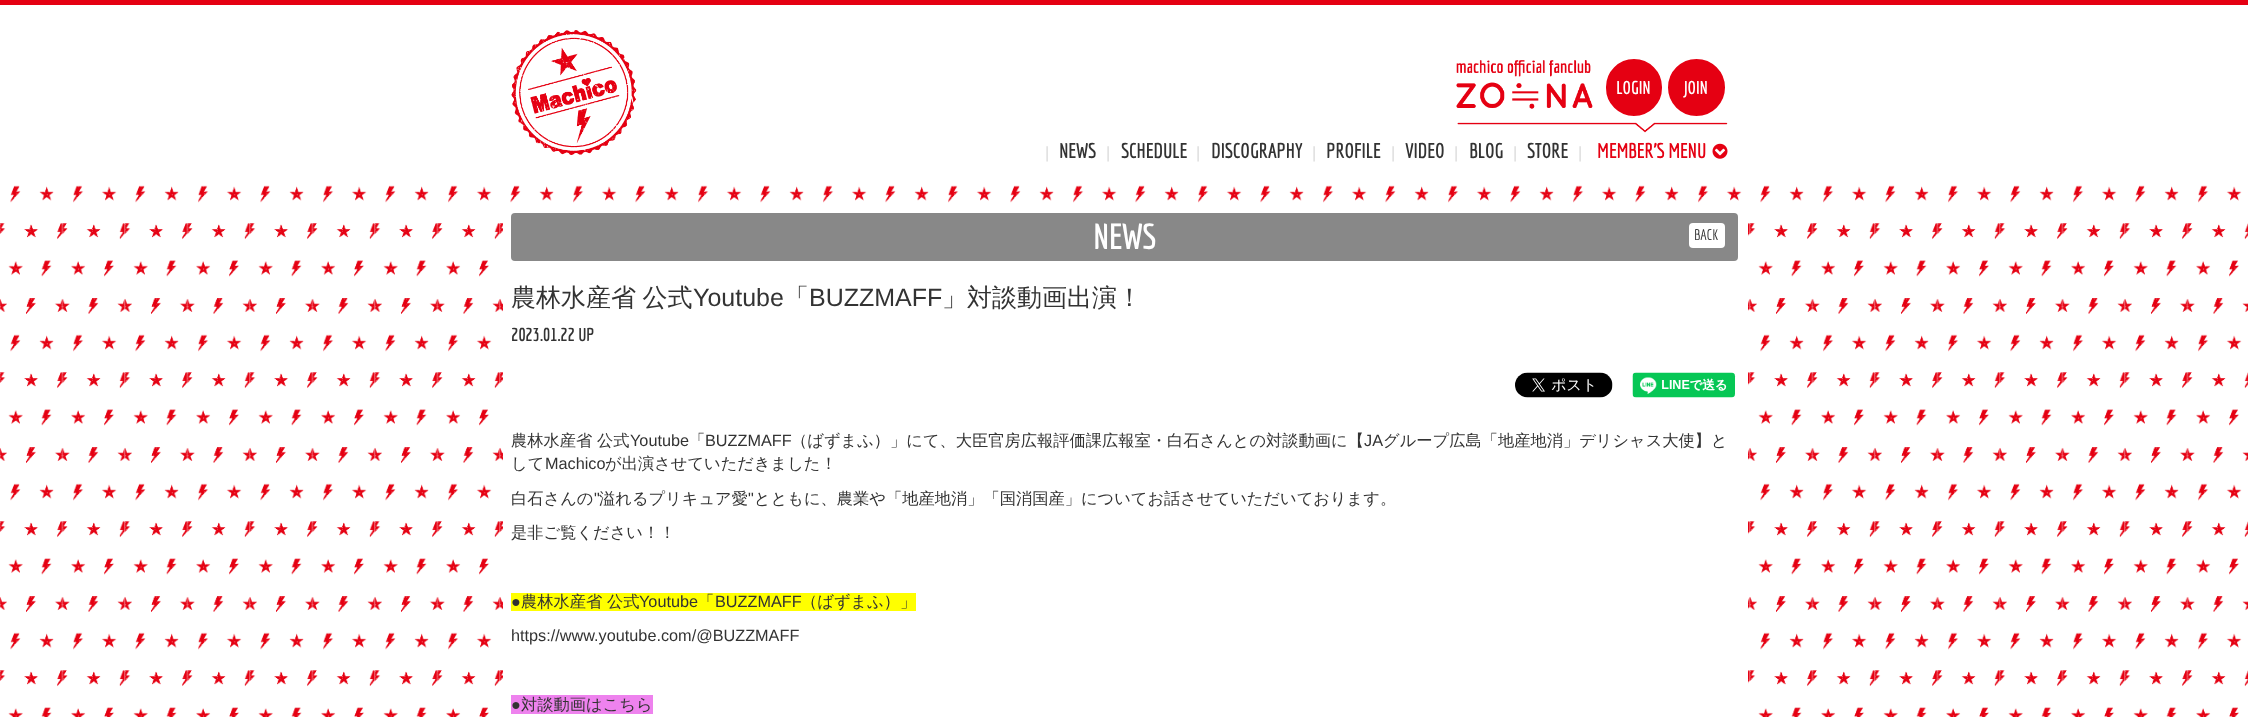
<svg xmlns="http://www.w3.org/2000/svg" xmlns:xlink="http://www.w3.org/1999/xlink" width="2248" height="717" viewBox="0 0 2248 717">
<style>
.cls-1{font:bold 17.5px Economica;fill:#ffffff}
.cls-2{font:16.25px Liberation Sans;fill:#dbdbdb}
.cls-3{font:bold 20px Economica;fill:#333333}
.cls-4{font:bold 20px Economica;fill:#e50012}
.cls-5{font:bold 34px Economica;fill:#ffffff}
.cls-6{font:15px Economica;fill:#333333}
.cls-7{font:500 25px WenQuanYi Zen Hei;fill:#333333}
.cls-8{font:25px Liberation Sans;fill:#333333}
.cls-9{font:bold 17.5px Economica;fill:#333333}
.cls-10{font:500 16.25px WenQuanYi Zen Hei;fill:#333333}
.cls-11{font:16.25px Liberation Sans;fill:#333333}
</style>
<rect width="100%" height="100%" fill="#ffffff"/>
<image xlink:href="image0.png" x="0" y="185" width="2248" height="532"/>
<rect fill="#e50012" x="0" y="0" width="2248" height="5"/>
<image xlink:href="image1.png" x="511" y="30" width="126" height="125"/>
<image xlink:href="image2.png" x="1456" y="60" width="137" height="49"/>
<rect fill="#e50012" stroke="#ffffff" stroke-width="3" x="1604.5" y="57.5" width="59" height="60" rx="29.5"/>
<circle fill="#e50012" stroke="#ffffff" stroke-width="3" cx="1696.5" cy="87.5" r="30"/>
<image xlink:href="image3.png" x="1457" y="122" width="271" height="11"/>
<image xlink:href="image4.png" x="1712" y="143" width="16" height="16"/>
<rect fill="#ffffff" x="503" y="223" width="1245" height="494"/>
<rect fill="#888888" x="511" y="213" width="1227" height="48" rx="4"/>
<rect fill="#ffffff" x="1689" y="223" width="36" height="25" rx="4"/>
<image xlink:href="image5.png" x="1515" y="372" width="98" height="26"/>
<image xlink:href="image6.png" x="1632" y="372" width="104" height="26"/>
<rect fill="#ffff00" x="511" y="593" width="405" height="18"/>
<rect fill="#ee82ee" x="511" y="695" width="142" height="19"/>
<text class="cls-1" x="1616" y="94">LOGIN</text>
<text class="cls-1" x="1683" y="94">JOIN</text>
<text class="cls-2" x="1045" y="158">|</text>
<text class="cls-3" x="1059" y="158">NEWS</text>
<text class="cls-2" x="1106" y="158">|</text>
<text class="cls-3" x="1121" y="158">SCHEDULE</text>
<text class="cls-2" x="1196" y="158">|</text>
<text class="cls-3" x="1211" y="158">DISCOGRAPHY</text>
<text class="cls-2" x="1312" y="158">|</text>
<text class="cls-3" x="1326" y="158">PROFILE</text>
<text class="cls-2" x="1391" y="158">|</text>
<text class="cls-3" x="1405" y="158">VIDEO</text>
<text class="cls-2" x="1454" y="158">|</text>
<text class="cls-3" x="1469" y="158">BLOG</text>
<text class="cls-2" x="1513" y="158">|</text>
<text class="cls-3" x="1527" y="158">STORE</text>
<text class="cls-2" x="1578" y="158">|</text>
<text class="cls-4" x="1597" y="158">MEMBER'S MENU</text>
<text class="cls-5" x="1093" y="249">NEWS</text>
<text class="cls-6" x="1694" y="240">BACK</text>
<text class="cls-7" x="511" y="306" word-spacing="-1">農林水産省 公式</text>
<text class="cls-8" x="693" y="306">Youtube</text>
<text class="cls-7" x="784" y="306">「</text>
<text class="cls-8" x="809" y="306">BUZZMAFF</text>
<text class="cls-7" x="942" y="306">」対談動画出演！</text>
<text class="cls-9" x="511" y="341">2023.01.22 UP</text>
<text class="cls-10" x="511" y="446">農林水産省</text>
<text class="cls-10" x="597" y="446">公式</text>
<text class="cls-11" x="630" y="446">Youtube</text>
<text class="cls-10" x="689" y="446">「</text>
<text class="cls-11" x="705" y="446">BUZZMAFF</text>
<text class="cls-10" x="791" y="446">（ばずまふ）」にて、大臣官房広報評価課広報室・白石さんとの対談動画に【</text>
<text class="cls-11" x="1364" y="446">JA</text>
<text class="cls-10" x="1383" y="446">グループ広島「地産地消」デリシャス大使】と</text>
<text class="cls-10" x="511" y="469">して</text>
<text class="cls-11" x="545" y="469">Machico</text>
<text class="cls-10" x="605" y="469">が出演させていただきました！</text>
<text class="cls-10" x="511" y="504">白石さんの</text>
<text class="cls-11" x="594" y="504">"</text>
<text class="cls-10" x="599" y="504">溢れるプリキュア愛</text>
<text class="cls-11" x="748" y="504">"</text>
<text class="cls-10" x="754" y="504">とともに、農業や「地産地消」「国消国産」についてお話させていただいております。</text>
<text class="cls-10" x="511" y="538">是非ご覧ください！！</text>
<text class="cls-11" x="511" y="607">●</text>
<text class="cls-10" x="521" y="607">農林水産省</text>
<text class="cls-10" x="607" y="607">公式</text>
<text class="cls-11" x="639" y="607">Youtube</text>
<text class="cls-10" x="698" y="607">「</text>
<text class="cls-11" x="715" y="607">BUZZMAFF</text>
<text class="cls-10" x="801" y="607">（ばずまふ）」</text>
<text class="cls-11" x="511" y="641">https://www.youtube.com/@BUZZMAFF</text>
<text class="cls-11" x="511" y="710">●</text>
<text class="cls-10" x="521" y="710">対談動画はこちら</text>
</svg>
